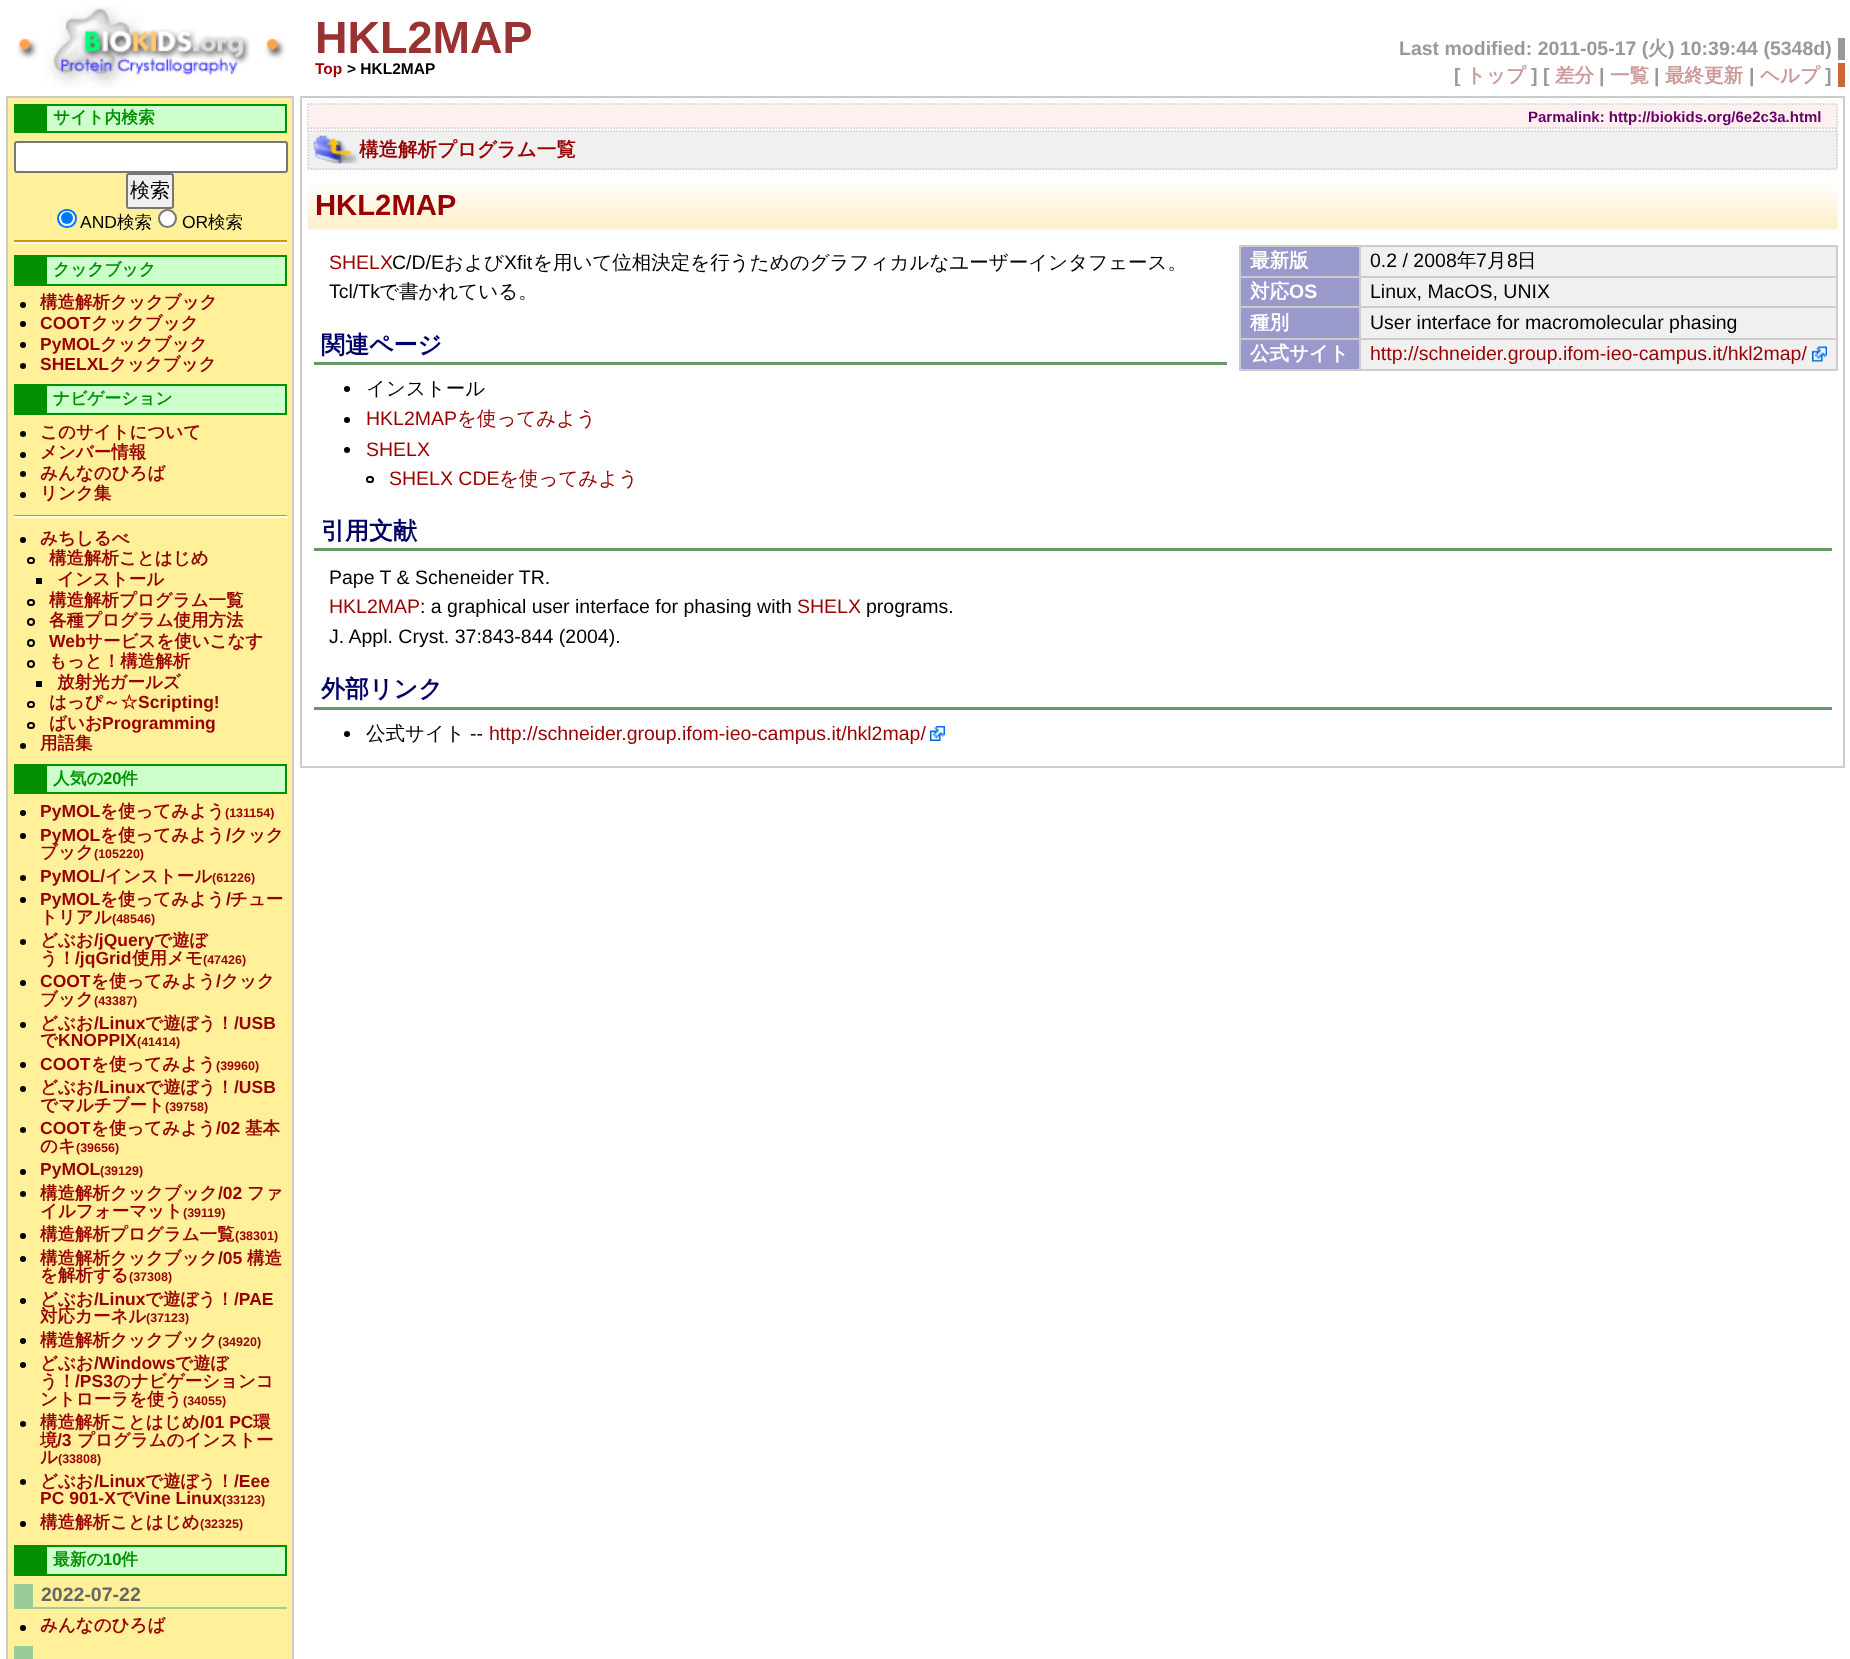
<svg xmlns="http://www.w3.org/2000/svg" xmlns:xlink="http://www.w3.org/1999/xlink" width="1850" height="1659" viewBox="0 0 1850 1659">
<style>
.cls-1{font:bold 45px Liberation Sans;fill:#993333}
.cls-2{font:bold 15.5px Liberation Sans;fill:#990000}
.cls-3{font:bold 15.5px Liberation Sans;fill:#000000}
.cls-4{font:bold 19.5px Liberation Sans;fill:#999999}
.cls-5{font:bold 19.5px WenQuanYi Zen Hei;fill:#999999}
.cls-6{font:bold 19.5px WenQuanYi Zen Hei;fill:#cc9999}
.cls-7{font:bold 16.75px WenQuanYi Zen Hei;fill:#009000}
.cls-8{font:500 20px WenQuanYi Zen Hei;fill:#000000}
.cls-9{font:17.5px Liberation Sans;fill:#000000}
.cls-10{font:500 17.5px WenQuanYi Zen Hei;fill:#000000}
.cls-11{font:bold 17.5px WenQuanYi Zen Hei;fill:#990000}
.cls-12{font:bold 17.5px Liberation Sans;fill:#990000}
.cls-13{font:bold 16.75px Liberation Sans;fill:#009000}
.cls-14{font:bold 12.5px Liberation Sans;fill:#990000}
.cls-15{font:bold 19.5px Liberation Sans;fill:#666666}
.cls-16{font:bold 15px Liberation Sans;fill:#660066}
.cls-17{font:bold 19.5px WenQuanYi Zen Hei;fill:#990000}
.cls-18{font:bold 29.25px Liberation Sans;fill:#990000}
.cls-19{font:19.5px Liberation Sans;fill:#990000}
.cls-20{font:19.5px Liberation Sans;fill:#000000}
.cls-21{font:500 19.5px WenQuanYi Zen Hei;fill:#000000}
.cls-22{font:bold 19.5px WenQuanYi Zen Hei;fill:#ffffff}
.cls-23{font:bold 19.5px Liberation Sans;fill:#ffffff}
.cls-24{font:bold 24px WenQuanYi Zen Hei;fill:#000066}
.cls-25{font:500 19.5px WenQuanYi Zen Hei;fill:#990000}
</style>
<rect width="100%" height="100%" fill="#ffffff"/>
<image xlink:href="image0.png" x="0" y="5" width="300" height="83"/>
<rect fill="#999999" x="1838" y="38" width="7" height="22"/>
<rect fill="#cc6633" x="1838" y="63" width="7" height="24"/>
<rect fill="#fff099" stroke="#cccccc" stroke-width="2" x="7" y="97" width="286" height="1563"/>
<rect fill="#ccffcc" x="47" y="106" width="238" height="25"/>
<rect fill="#009000" x="47" y="104" width="240" height="2"/>
<rect fill="#009000" x="285" y="104" width="2" height="28"/>
<rect fill="#009000" x="14" y="131" width="273" height="2"/>
<rect fill="#009000" x="14" y="104" width="33" height="27"/>
<rect fill="#ffffff" stroke="#767676" stroke-width="2" x="15" y="142" width="272" height="30" rx="2"/>
<rect fill="#efefef" stroke="#767676" stroke-width="2" x="127" y="174" width="46" height="34" rx="2"/>
<rect fill="#ffffff" stroke="#0075ff" stroke-width="2" x="58" y="210" width="18" height="17" rx="8.5"/>
<circle fill="#0075ff" cx="67" cy="218" r="6"/>
<circle fill="#ffffff" stroke="#767676" stroke-width="2" cx="167.5" cy="218.5" r="8.5"/>
<rect fill="#cc9900" x="14" y="240" width="273" height="2"/>
<rect fill="#fffff0" x="14" y="242" width="273" height="2"/>
<rect fill="#ccffcc" x="47" y="257" width="238" height="27"/>
<rect fill="#009000" x="47" y="255" width="240" height="2"/>
<rect fill="#009000" x="285" y="255" width="2" height="30"/>
<rect fill="#009000" x="14" y="284" width="273" height="2"/>
<rect fill="#009000" x="14" y="255" width="33" height="29"/>
<circle fill="#000000" cx="23" cy="305" r="3"/>
<circle fill="#000000" cx="23" cy="324" r="3"/>
<circle fill="#000000" cx="23" cy="345" r="3"/>
<circle fill="#000000" cx="23" cy="366" r="3"/>
<rect fill="#ccffcc" x="47" y="386" width="238" height="27"/>
<rect fill="#009000" x="47" y="384" width="240" height="2"/>
<rect fill="#009000" x="285" y="384" width="2" height="30"/>
<rect fill="#009000" x="14" y="413" width="273" height="2"/>
<rect fill="#009000" x="14" y="384" width="33" height="29"/>
<circle fill="#000000" cx="23" cy="434" r="3"/>
<circle fill="#000000" cx="23" cy="455" r="3"/>
<circle fill="#000000" cx="23" cy="474" r="3"/>
<circle fill="#000000" cx="23" cy="495" r="3"/>
<rect fill="#cc9900" x="14" y="515" width="273" height="1"/>
<rect fill="#fffff0" x="14" y="516" width="273" height="2"/>
<circle fill="#000000" cx="23" cy="540" r="3"/>
<rect fill="none" stroke="#000000" stroke-width="2" x="28" y="558" width="6" height="5" rx="2.5"/>
<rect fill="#000000" x="36" y="578" width="6" height="6"/>
<rect fill="none" stroke="#000000" stroke-width="2" x="28" y="600" width="6" height="5" rx="2.5"/>
<circle fill="none" stroke="#000000" stroke-width="2" cx="31" cy="622" r="3"/>
<circle fill="none" stroke="#000000" stroke-width="2" cx="31" cy="643" r="3"/>
<circle fill="none" stroke="#000000" stroke-width="2" cx="31" cy="664" r="3"/>
<rect fill="#000000" x="36" y="681" width="6" height="6"/>
<rect fill="none" stroke="#000000" stroke-width="2" x="28" y="702" width="6" height="5" rx="2.5"/>
<rect fill="none" stroke="#000000" stroke-width="2" x="28" y="723" width="6" height="5" rx="2.5"/>
<circle fill="#000000" cx="23" cy="746" r="3"/>
<rect fill="#ccffcc" x="47" y="766" width="238" height="26"/>
<rect fill="#009000" x="47" y="764" width="240" height="2"/>
<rect fill="#009000" x="285" y="764" width="2" height="30"/>
<rect fill="#009000" x="47" y="792" width="240" height="2"/>
<rect fill="#009000" x="14" y="764" width="33" height="30"/>
<circle fill="#000000" cx="23" cy="813" r="3"/>
<circle fill="#000000" cx="23" cy="836" r="3"/>
<circle fill="#000000" cx="23" cy="878" r="3"/>
<circle fill="#000000" cx="23" cy="900" r="3"/>
<circle fill="#000000" cx="23" cy="942" r="3"/>
<circle fill="#000000" cx="23" cy="983" r="3"/>
<circle fill="#000000" cx="23" cy="1025" r="3"/>
<circle fill="#000000" cx="23" cy="1065" r="3"/>
<circle fill="#000000" cx="23" cy="1089" r="3"/>
<circle fill="#000000" cx="23" cy="1130" r="3"/>
<circle fill="#000000" cx="23" cy="1172" r="3"/>
<circle fill="#000000" cx="23" cy="1194" r="3"/>
<circle fill="#000000" cx="23" cy="1236" r="3"/>
<circle fill="#000000" cx="23" cy="1259" r="3"/>
<circle fill="#000000" cx="23" cy="1301" r="3"/>
<circle fill="#000000" cx="23" cy="1341" r="3"/>
<circle fill="#000000" cx="23" cy="1365" r="3"/>
<circle fill="#000000" cx="23" cy="1424" r="3"/>
<circle fill="#000000" cx="23" cy="1482" r="3"/>
<circle fill="#000000" cx="23" cy="1524" r="3"/>
<rect fill="#ccffcc" x="47" y="1547" width="238" height="27"/>
<rect fill="#009000" x="47" y="1545" width="240" height="2"/>
<rect fill="#009000" x="285" y="1545" width="2" height="30"/>
<rect fill="#009000" x="14" y="1574" width="273" height="2"/>
<rect fill="#009000" x="14" y="1545" width="33" height="29"/>
<rect fill="#99cc99" x="14" y="1607" width="273" height="2"/>
<rect fill="#99cc99" x="14" y="1584" width="19" height="23"/>
<circle fill="#000000" cx="23" cy="1628" r="3"/>
<rect fill="#99cc99" x="14" y="1646" width="19" height="13"/>
<rect fill="none" stroke="#cccccc" stroke-width="2" x="301" y="97" width="1543" height="670"/>
<rect fill="#fff0f0" x="308" y="104" width="1530" height="25"/>
<path fill="none" stroke="#cccccc" stroke-width="1.5" stroke-dasharray="1.5 1.5" d="M307.5 104H1837.5"/>
<path fill="none" stroke="#cccccc" stroke-width="1.5" stroke-dasharray="1.5 1.5" d="M1837 103.5V129"/>
<path fill="none" stroke="#cccccc" stroke-width="1.5" stroke-dasharray="1.5 1.5" d="M307.5 128H1837.5"/>
<path fill="none" stroke="#cccccc" stroke-width="1.5" stroke-dasharray="1.5 1.5" d="M308 103.5V129"/>
<rect fill="#f0f0f0" x="308" y="131" width="1530" height="39"/>
<path fill="none" stroke="#cccccc" stroke-width="1.5" stroke-dasharray="1.5 1.5" d="M307.5 131H1837.5"/>
<path fill="none" stroke="#cccccc" stroke-width="1.5" stroke-dasharray="1.5 1.5" d="M1837 130.5V169.5"/>
<path fill="none" stroke="#cccccc" stroke-width="1.5" stroke-dasharray="1.5 1.5" d="M307.5 169H1837.5"/>
<path fill="none" stroke="#cccccc" stroke-width="1.5" stroke-dasharray="1.5 1.5" d="M308 130.5V169.5"/>
<image xlink:href="image1.png" x="313" y="135" width="46" height="29"/>
<image xlink:href="image2.png" x="307" y="184" width="1531" height="46"/>
<rect fill="#9999cc" x="1241" y="247" width="118" height="29"/>
<rect fill="#cccccc" x="1359" y="245" width="479" height="2"/>
<rect fill="#cccccc" x="1359" y="276" width="479" height="2"/>
<rect fill="#cccccc" x="1359" y="306" width="479" height="2"/>
<rect fill="#cccccc" x="1359" y="338" width="479" height="2"/>
<rect fill="#cccccc" x="1836" y="338" width="2" height="33"/>
<rect fill="#cccccc" x="1359" y="369" width="479" height="2"/>
<rect fill="#cccccc" x="1359" y="338" width="2" height="33"/>
<rect fill="#cccccc" x="1239" y="338" width="122" height="2"/>
<rect fill="#cccccc" x="1359" y="306" width="2" height="33"/>
<rect fill="#cccccc" x="1239" y="306" width="122" height="2"/>
<rect fill="#cccccc" x="1359" y="276" width="2" height="32"/>
<rect fill="#cccccc" x="1239" y="276" width="122" height="2"/>
<rect fill="#cccccc" x="1359" y="245" width="2" height="33"/>
<rect fill="#cccccc" x="1239" y="245" width="122" height="2"/>
<rect fill="#cccccc" x="1239" y="369" width="122" height="2"/>
<rect fill="#cccccc" x="1239" y="338" width="2" height="33"/>
<rect fill="#cccccc" x="1239" y="306" width="2" height="33"/>
<rect fill="#cccccc" x="1239" y="276" width="2" height="32"/>
<rect fill="#cccccc" x="1239" y="245" width="2" height="33"/>
<rect fill="#f0f0f0" x="1361" y="247" width="475" height="29"/>
<rect fill="#cccccc" x="1836" y="306" width="2" height="33"/>
<rect fill="#cccccc" x="1836" y="276" width="2" height="32"/>
<rect fill="#cccccc" x="1836" y="245" width="2" height="33"/>
<rect fill="#9999cc" x="1241" y="278" width="118" height="28"/>
<rect fill="#f0f0f0" x="1361" y="278" width="475" height="28"/>
<rect fill="#9999cc" x="1241" y="308" width="118" height="30"/>
<rect fill="#f0f0f0" x="1361" y="308" width="475" height="30"/>
<rect fill="#9999cc" x="1241" y="340" width="118" height="29"/>
<rect fill="#f0f0f0" x="1361" y="340" width="475" height="29"/>
<image xlink:href="image3.png" x="1812" y="346" width="15" height="16"/>
<rect fill="#669966" x="314" y="362" width="913" height="3"/>
<circle fill="#000000" cx="347" cy="389" r="3"/>
<circle fill="#000000" cx="347" cy="420" r="3"/>
<circle fill="#000000" cx="347" cy="450" r="3"/>
<rect fill="none" stroke="#000000" stroke-width="2" x="367" y="477" width="6" height="5" rx="2.5"/>
<rect fill="#669966" x="314" y="548" width="1518" height="3"/>
<rect fill="#669966" x="314" y="707" width="1518" height="3"/>
<circle fill="#000000" cx="347" cy="734" r="3"/>
<image xlink:href="image4.png" x="930" y="726" width="15" height="15"/>
<text class="cls-1" x="315" y="53">HKL2MAP</text>
<text class="cls-2" x="315" y="74">Top</text>
<text class="cls-3" x="347" y="74">&gt; HKL2MAP</text>
<text class="cls-4" x="1399" y="55">Last modified: 2011-05-17 (</text>
<text class="cls-5" x="1648" y="55">火</text>
<text class="cls-4" x="1668" y="55">) 10:39:44 (5348d)</text>
<text class="cls-4" x="1454" y="82">[</text>
<text class="cls-6" x="1466" y="82">トップ</text>
<text class="cls-4" x="1531" y="82">] [</text>
<text class="cls-6" x="1555" y="82">差分</text>
<text class="cls-4" x="1599" y="82">|</text>
<text class="cls-6" x="1610" y="82">一覧</text>
<text class="cls-4" x="1654" y="82">|</text>
<text class="cls-6" x="1665" y="82">最終更新</text>
<text class="cls-4" x="1749" y="82">|</text>
<text class="cls-6" x="1760" y="82">ヘルプ</text>
<text class="cls-4" x="1825" y="82">]</text>
<text class="cls-7" x="53" y="123">サイト内検索</text>
<text class="cls-8" x="130" y="197">検索</text>
<text class="cls-9" x="80" y="228">AND</text>
<text class="cls-10" x="117" y="228">検索</text>
<text class="cls-9" x="182" y="228">OR</text>
<text class="cls-10" x="208" y="228">検索</text>
<text class="cls-7" x="53" y="275">クックブック</text>
<text class="cls-11" x="40" y="308">構造解析クックブック</text>
<text class="cls-12" x="40" y="329">COOT</text>
<text class="cls-11" x="91" y="329">クックブック</text>
<text class="cls-12" x="40" y="350">PyMOL</text>
<text class="cls-11" x="100" y="350">クックブック</text>
<text class="cls-12" x="40" y="370">SHELXL</text>
<text class="cls-11" x="109" y="370">クックブック</text>
<text class="cls-7" x="53" y="404">ナビゲーション</text>
<text class="cls-11"><tspan x="40" y="438">このサイトについて</tspan><tspan x="40" y="458">メンバー情報</tspan><tspan x="40" y="479">みんなのひろば</tspan><tspan x="40" y="499">リンク集</tspan></text>
<text class="cls-11" x="40" y="544">みちしるべ</text>
<text class="cls-11" x="49" y="564">構造解析ことはじめ</text>
<text class="cls-11" x="57" y="585">インストール</text>
<text class="cls-11"><tspan x="49" y="606">構造解析プログラム一覧</tspan><tspan x="49" y="626">各種プログラム使用方法</tspan></text>
<text class="cls-12" x="49" y="647">Web</text>
<text class="cls-11" x="85" y="647">サービスを使いこなす</text>
<text class="cls-11" x="49" y="667">もっと！構造解析</text>
<text class="cls-11" x="57" y="688">放射光ガールズ</text>
<text class="cls-11" x="49" y="708">はっぴ～☆</text>
<text class="cls-12" x="138" y="708">Scripting!</text>
<text class="cls-11" x="49" y="729">ばいお</text>
<text class="cls-12" x="102" y="729">Programming</text>
<text class="cls-11" x="40" y="749">用語集</text>
<text class="cls-7" x="53" y="784">人気の</text>
<text class="cls-13" x="103" y="784">20</text>
<text class="cls-7" x="121" y="784">件</text>
<text class="cls-12" x="40" y="817">PyMOL</text>
<text class="cls-11" x="100" y="817">を使ってみよう</text>
<text class="cls-14" x="225" y="817">(131154)</text>
<text class="cls-12" x="40" y="841">PyMOL</text>
<text class="cls-11" x="100" y="841">を使ってみよう</text>
<text class="cls-12" x="226" y="841">/</text>
<text class="cls-11" x="230" y="841">クック</text>
<text class="cls-11" x="40" y="858">ブック</text>
<text class="cls-14" x="94" y="858">(105220)</text>
<text class="cls-12" x="40" y="882">PyMOL/</text>
<text class="cls-11" x="105" y="882">インストール</text>
<text class="cls-14" x="212" y="882">(61226)</text>
<text class="cls-12" x="40" y="905">PyMOL</text>
<text class="cls-11" x="100" y="905">を使ってみよう</text>
<text class="cls-12" x="226" y="905">/</text>
<text class="cls-11" x="230" y="905">チュー</text>
<text class="cls-11" x="40" y="923">トリアル</text>
<text class="cls-14" x="112" y="923">(48546)</text>
<text class="cls-11" x="40" y="946">どぶお</text>
<text class="cls-12" x="94" y="946">/jQuery</text>
<text class="cls-11" x="154" y="946">で遊ぼ</text>
<text class="cls-11" x="40" y="964">う！</text>
<text class="cls-12" x="75" y="964">/jqGrid</text>
<text class="cls-11" x="132" y="964">使用メモ</text>
<text class="cls-14" x="203" y="964">(47426)</text>
<text class="cls-12" x="40" y="987">COOT</text>
<text class="cls-11" x="91" y="987">を使ってみよう</text>
<text class="cls-12" x="216" y="987">/</text>
<text class="cls-11" x="221" y="987">クック</text>
<text class="cls-11" x="40" y="1005">ブック</text>
<text class="cls-14" x="94" y="1005">(43387)</text>
<text class="cls-11" x="40" y="1029">どぶお</text>
<text class="cls-12" x="94" y="1029">/Linux</text>
<text class="cls-11" x="145" y="1029">で遊ぼう！</text>
<text class="cls-12" x="234" y="1029">/USB</text>
<text class="cls-11" x="40" y="1046">で</text>
<text class="cls-12" x="58" y="1046">KNOPPIX</text>
<text class="cls-14" x="137" y="1046">(41414)</text>
<text class="cls-12" x="40" y="1070">COOT</text>
<text class="cls-11" x="91" y="1070">を使ってみよう</text>
<text class="cls-14" x="216" y="1070">(39960)</text>
<text class="cls-11" x="40" y="1093">どぶお</text>
<text class="cls-12" x="94" y="1093">/Linux</text>
<text class="cls-11" x="145" y="1093">で遊ぼう！</text>
<text class="cls-12" x="234" y="1093">/USB</text>
<text class="cls-11" x="40" y="1111">でマルチブート</text>
<text class="cls-14" x="165" y="1111">(39758)</text>
<text class="cls-12" x="40" y="1134">COOT</text>
<text class="cls-11" x="91" y="1134">を使ってみよう</text>
<text class="cls-12" x="216" y="1134">/02</text>
<text class="cls-11" x="245" y="1134">基本</text>
<text class="cls-11" x="40" y="1152">のキ</text>
<text class="cls-14" x="76" y="1152">(39656)</text>
<text class="cls-12" x="40" y="1175">PyMOL</text>
<text class="cls-14" x="100" y="1175">(39129)</text>
<text class="cls-11" x="40" y="1199">構造解析クックブック</text>
<text class="cls-12" x="218" y="1199">/02</text>
<text class="cls-11" x="247" y="1199">ファ</text>
<text class="cls-11" x="40" y="1217">イルフォーマット</text>
<text class="cls-14" x="183" y="1217">(39119)</text>
<text class="cls-11" x="40" y="1240">構造解析プログラム一覧</text>
<text class="cls-14" x="235" y="1240">(38301)</text>
<text class="cls-11" x="40" y="1264">構造解析クックブック</text>
<text class="cls-12" x="218" y="1264">/05</text>
<text class="cls-11" x="247" y="1264">構造</text>
<text class="cls-11" x="40" y="1281">を解析する</text>
<text class="cls-14" x="129" y="1281">(37308)</text>
<text class="cls-11" x="40" y="1305">どぶお</text>
<text class="cls-12" x="94" y="1305">/Linux</text>
<text class="cls-11" x="145" y="1305">で遊ぼう！</text>
<text class="cls-12" x="234" y="1305">/PAE</text>
<text class="cls-11" x="40" y="1322">対応カーネル</text>
<text class="cls-14" x="146" y="1322">(37123)</text>
<text class="cls-11" x="40" y="1346">構造解析クックブック</text>
<text class="cls-14" x="218" y="1346">(34920)</text>
<text class="cls-11" x="40" y="1369">どぶお</text>
<text class="cls-12" x="94" y="1369">/Windows</text>
<text class="cls-11" x="175" y="1369">で遊ぼ</text>
<text class="cls-11" x="40" y="1387">う！</text>
<text class="cls-12" x="75" y="1387">/PS3</text>
<text class="cls-11" x="113" y="1387">のナビゲーションコ</text>
<text class="cls-11" x="40" y="1405">ントローラを使う</text>
<text class="cls-14" x="183" y="1405">(34055)</text>
<text class="cls-11" x="40" y="1428">構造解析ことはじめ</text>
<text class="cls-12" x="200" y="1428">/01 PC</text>
<text class="cls-11" x="253" y="1428">環</text>
<text class="cls-11" x="40" y="1446">境</text>
<text class="cls-12" x="57" y="1446">/3</text>
<text class="cls-11" x="77" y="1446">プログラムのインストー</text>
<text class="cls-11" x="40" y="1463">ル</text>
<text class="cls-14" x="58" y="1463">(33808)</text>
<text class="cls-11" x="40" y="1487">どぶお</text>
<text class="cls-12" x="94" y="1487">/Linux</text>
<text class="cls-11" x="145" y="1487">で遊ぼう！</text>
<text class="cls-12" x="234" y="1487">/Eee</text>
<text class="cls-12" x="40" y="1504">PC 901-X</text>
<text class="cls-11" x="116" y="1504">で</text>
<text class="cls-12" x="134" y="1504">Vine Linux</text>
<text class="cls-14" x="222" y="1504">(33123)</text>
<text class="cls-11" x="40" y="1528">構造解析ことはじめ</text>
<text class="cls-14" x="200" y="1528">(32325)</text>
<text class="cls-7" x="53" y="1565">最新の</text>
<text class="cls-13" x="103" y="1565">10</text>
<text class="cls-7" x="121" y="1565">件</text>
<text class="cls-15" x="41" y="1601">2022-07-22</text>
<text class="cls-11" x="40" y="1631">みんなのひろば</text>
<text class="cls-16" x="1528" y="122">Parmalink: http://biokids.org/6e2c3a.html</text>
<text class="cls-17" x="359" y="156">構造解析プログラム一覧</text>
<text class="cls-18" x="315" y="215">HKL2MAP</text>
<text class="cls-19" x="329" y="269">SHELX</text>
<text class="cls-20" x="392" y="269">C/D/E</text>
<text class="cls-21" x="444" y="269">および</text>
<text class="cls-20" x="504" y="269">Xfit</text>
<text class="cls-21" x="533" y="269">を用いて位相決定を行うためのグラフィカルなユーザーインタフェース。</text>
<text class="cls-20" x="329" y="298">Tcl/Tk</text>
<text class="cls-21" x="379" y="298">で書かれている。</text>
<text class="cls-22" x="1250" y="267">最新版</text>
<text class="cls-20" x="1370" y="267">0.2 / 2008</text>
<text class="cls-21" x="1457" y="267">年</text>
<text class="cls-20" x="1476" y="267">7</text>
<text class="cls-21" x="1487" y="267">月</text>
<text class="cls-20" x="1507" y="267">8</text>
<text class="cls-21" x="1517" y="267">日</text>
<text class="cls-22" x="1250" y="298">対応</text>
<text class="cls-23" x="1289" y="298">OS</text>
<text class="cls-20" x="1370" y="298">Linux, MacOS, UNIX</text>
<text class="cls-22" x="1250" y="329">種別</text>
<text class="cls-20" x="1370" y="329">User interface for macromolecular phasing</text>
<text class="cls-22" x="1250" y="360">公式サイト</text>
<text class="cls-19" x="1370" y="360">http://schneider.group.ifom-ieo-campus.it/hkl2map/</text>
<text class="cls-24" x="321" y="353">関連ページ</text>
<text class="cls-21" x="366" y="395">インストール</text>
<text class="cls-19" x="366" y="425">HKL2MAP</text>
<text class="cls-25" x="457" y="425">を使ってみよう</text>
<text class="cls-19" x="366" y="456">SHELX</text>
<text class="cls-19" x="389" y="485">SHELX CDE</text>
<text class="cls-25" x="499" y="485">を使ってみよう</text>
<text class="cls-24" x="321" y="539">引用文献</text>
<text class="cls-20" x="329" y="584">Pape T &amp; Scheneider TR.</text>
<text class="cls-19" x="329" y="613">HKL2MAP</text>
<text class="cls-20" x="420" y="613">: a graphical user interface for phasing with</text>
<text class="cls-19" x="797" y="613">SHELX</text>
<text class="cls-20" x="866" y="613">programs.</text>
<text class="cls-20" x="329" y="643">J. Appl. Cryst. 37:843-844 (2004).</text>
<text class="cls-24" x="321" y="697">外部リンク</text>
<text class="cls-21" x="366" y="740">公式サイト</text>
<text class="cls-20" x="470" y="740">--</text>
<text class="cls-19" x="489" y="740">http://schneider.group.ifom-ieo-campus.it/hkl2map/</text>
</svg>
